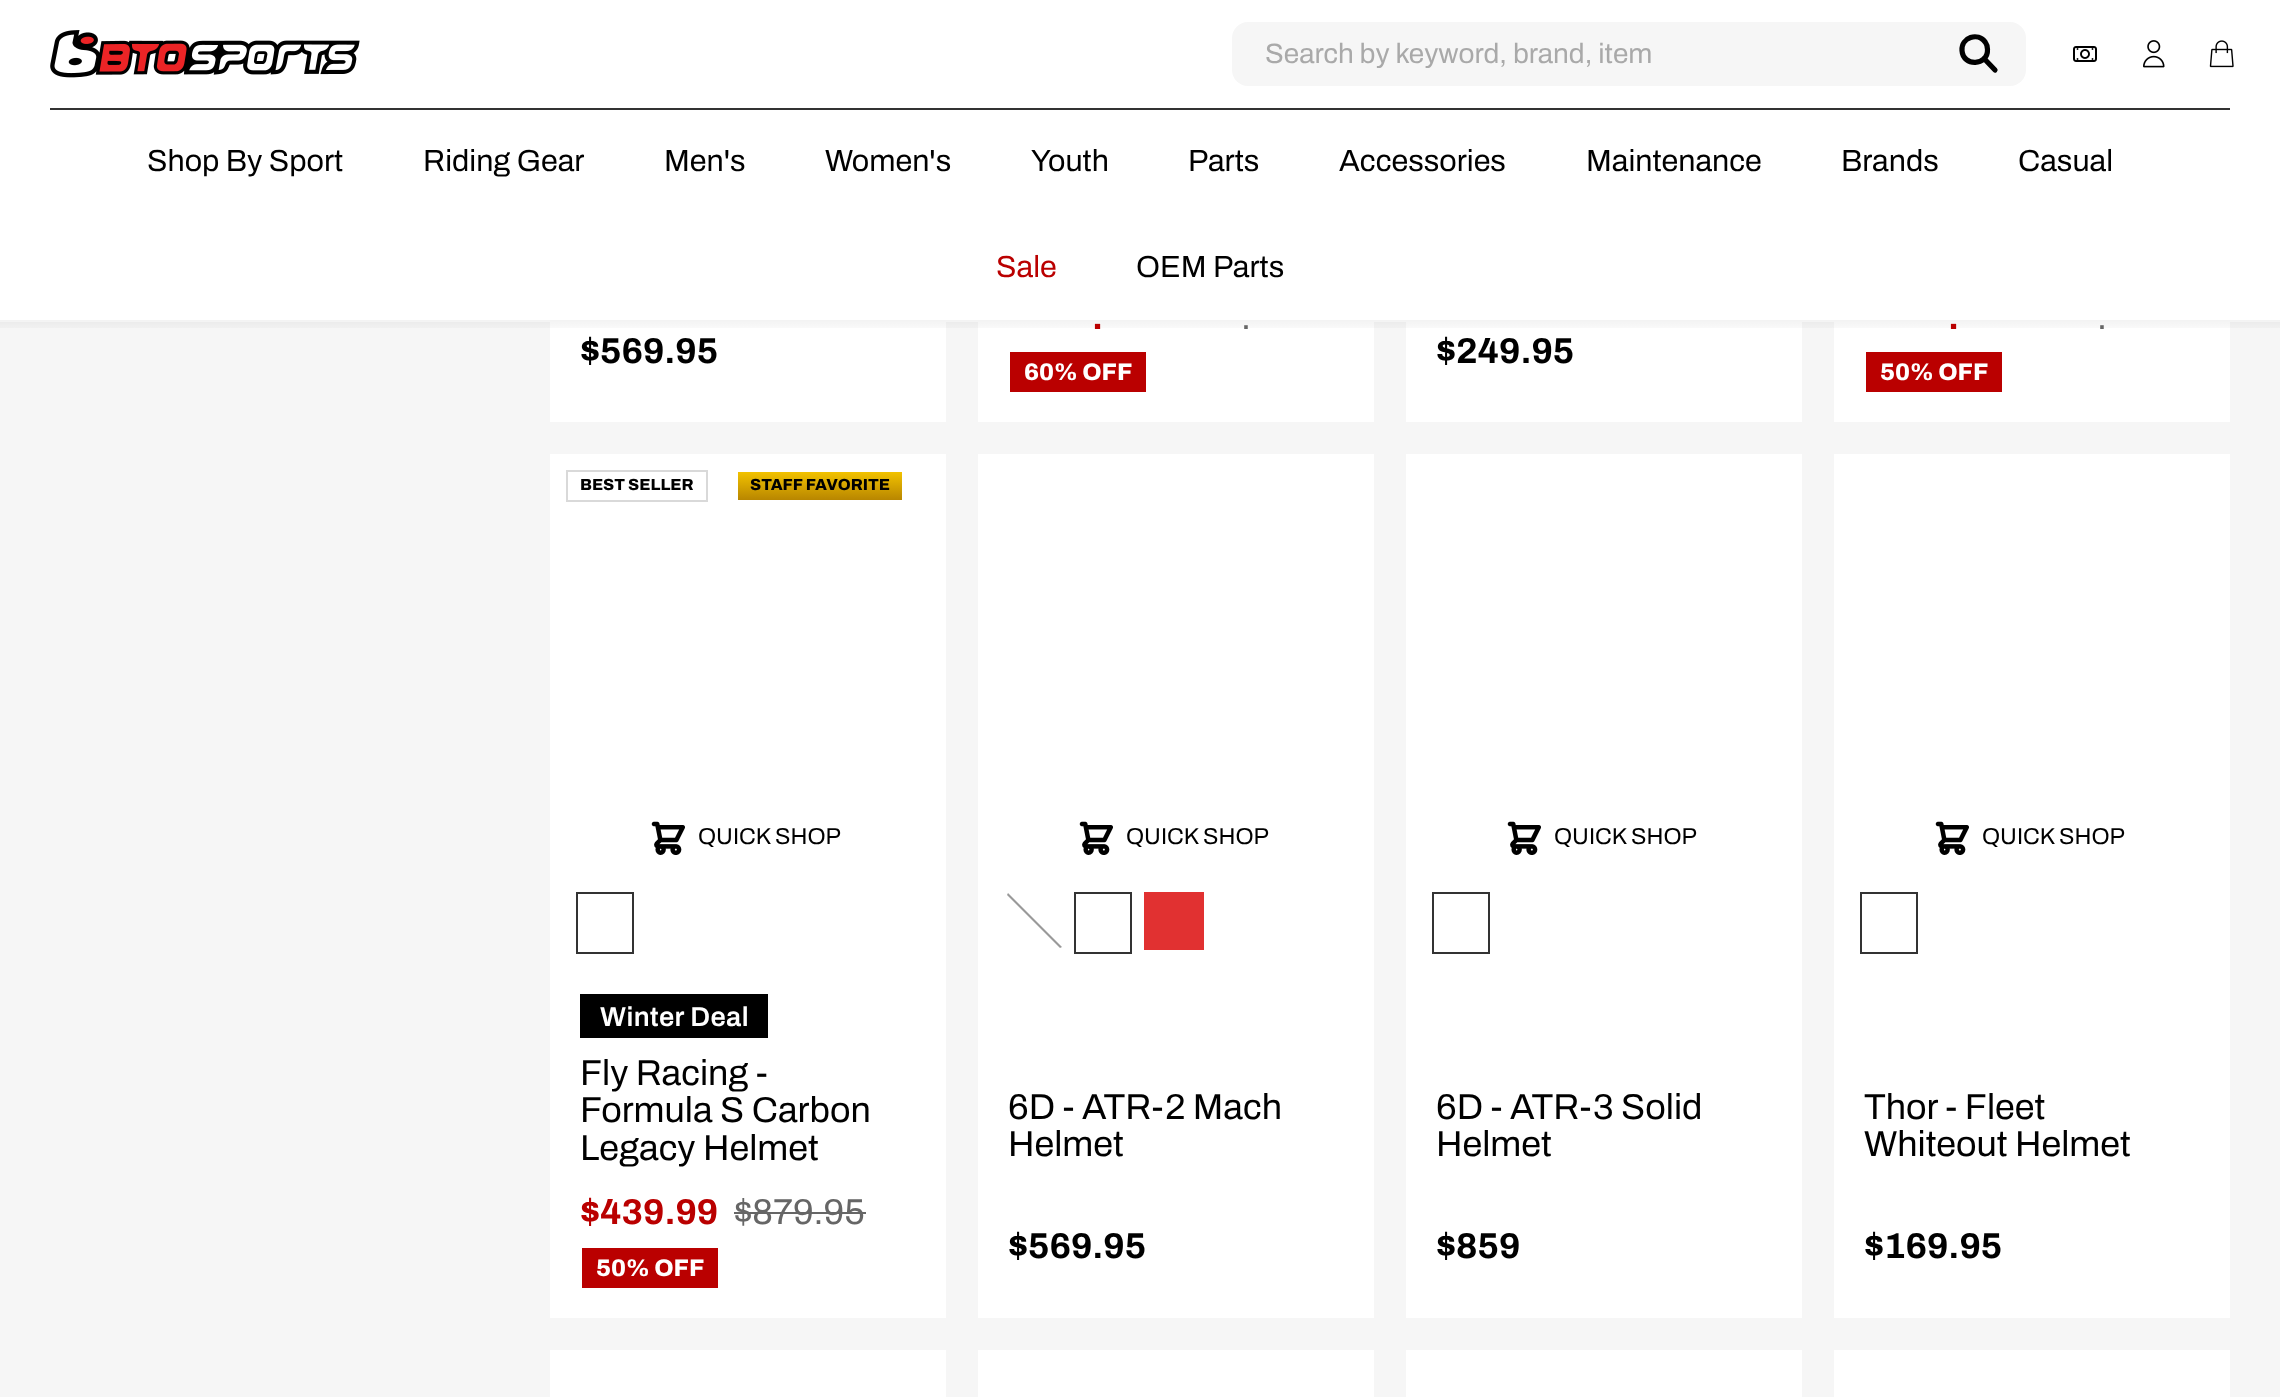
<svg xmlns="http://www.w3.org/2000/svg" xmlns:xlink="http://www.w3.org/1999/xlink" width="2280" height="1397" viewBox="0 0 2280 1397">
<style>
.cls-1{font:28px Archivo;fill:#a9a9a9}
.cls-2{font:30.5px Archivo;fill:#000000}
.cls-3{font:30.5px Archivo;fill:#ba0000}
.cls-4{font:bold 36px Archivo;fill:#000000}
.cls-5{font:bold 36px Archivo;fill:#ba0000}
.cls-6{font:36px Archivo;fill:#666666}
.cls-7{font:800 24px Archivo;fill:#ffffff}
.cls-8{font:800 16px Archivo;fill:#000000}
.cls-9{font:23px Archivo;fill:#000000}
.cls-10{font:600 27.25px Archivo;letter-spacing:0.4px;fill:#ffffff}
.cls-11{font:36px Archivo;fill:#000000}
</style>
<defs>
<linearGradient id="g1" gradientUnits="userSpaceOnUse" x1="1140" y1="320" x2="1140" y2="334"><stop offset="0" stop-color="#000000" stop-opacity="0.05"/><stop offset="1" stop-color="#000000" stop-opacity="0"/></linearGradient>
<linearGradient id="g2" gradientUnits="userSpaceOnUse" x1="820" y1="472" x2="820" y2="500"><stop offset="0" stop-color="#f2c200"/><stop offset="1" stop-color="#b88600"/></linearGradient>
</defs>
<rect width="100%" height="100%" fill="#f6f6f6"/>
<rect fill="#ffffff" x="0" y="0" width="2280" height="322"/>
<image xlink:href="image0.png" x="50" y="30" width="310" height="48"/>
<rect fill="#f6f6f6" x="1232" y="22" width="794" height="64" rx="16"/>
<path fill="none" stroke="#000000" stroke-width="5.2" stroke-linecap="round" stroke-linejoin="round" d="M1995 70L1984 58.5M1987.5 49.5C1988 66 1963 67 1962 50.5C1961 37.5 1978 31.5 1985.5 42.5C1987 44.5 1987.5 47 1987.5 49.5Z"/>
<image xlink:href="image1.png" x="2073" y="46" width="24" height="16"/>
<image xlink:href="image2.png" x="2143" y="40" width="22" height="28"/>
<image xlink:href="image3.png" x="2209" y="40" width="25" height="28"/>
<rect fill="#333333" x="50" y="108" width="2180" height="2"/>
<rect fill="#ffffff" x="550" y="322" width="396" height="100"/>
<rect fill="#ffffff" x="978" y="322" width="396" height="100"/>
<rect fill="#ffffff" x="1406" y="322" width="396" height="100"/>
<rect fill="#ffffff" x="1834" y="322" width="396" height="100"/>
<rect fill="url(#g1)" x="0" y="320" width="2280" height="8"/>
<rect fill="#ba0000" x="1010" y="352" width="136" height="40"/>
<rect fill="#ba0000" x="1866" y="352" width="136" height="40"/>
<rect fill="#ffffff" x="550" y="454" width="396" height="864"/>
<rect fill="none" stroke="#d9d9d9" stroke-width="2" x="567" y="471" width="140" height="30"/>
<rect fill="url(#g2)" x="738" y="472" width="164" height="28"/>
<image xlink:href="image4.png" x="651" y="821" width="34" height="34"/>
<rect fill="none" stroke="#333333" stroke-width="2" x="577" y="893" width="56" height="60"/>
<rect fill="#000000" x="580" y="994" width="188" height="44"/>
<rect fill="#666666" x="734" y="1212" width="132" height="2"/>
<rect fill="#ba0000" x="582" y="1248" width="136" height="40"/>
<rect fill="#ffffff" x="978" y="454" width="396" height="864"/>
<image xlink:href="image4.png" x="1079" y="821" width="34" height="34"/>
<path fill="#999999" d="M1007 895L1008 893L1062 947L1060 948Z"/>
<rect fill="none" stroke="#333333" stroke-width="2" x="1075" y="893" width="56" height="60"/>
<rect fill="#e13131" x="1144" y="892" width="60" height="58"/>
<rect fill="#ffffff" x="1406" y="454" width="396" height="864"/>
<image xlink:href="image4.png" x="1507" y="821" width="34" height="34"/>
<rect fill="none" stroke="#333333" stroke-width="2" x="1433" y="893" width="56" height="60"/>
<rect fill="#ffffff" x="1834" y="454" width="396" height="864"/>
<image xlink:href="image4.png" x="1935" y="821" width="34" height="34"/>
<rect fill="none" stroke="#333333" stroke-width="2" x="1861" y="893" width="56" height="60"/>
<rect fill="#ffffff" x="550" y="1350" width="396" height="47"/>
<rect fill="#ffffff" x="978" y="1350" width="396" height="47"/>
<rect fill="#ffffff" x="1406" y="1350" width="396" height="47"/>
<rect fill="#ffffff" x="1834" y="1350" width="396" height="47"/>
<text class="cls-1" x="1265" y="63">Search by keyword, brand, item</text>
<text class="cls-2" x="147" y="171">Shop By Sport</text>
<text class="cls-2" x="423" y="171">Riding Gear</text>
<text class="cls-2" x="664" y="171">Men's</text>
<text class="cls-2" x="825" y="171">Women's</text>
<text class="cls-2" x="1031" y="171">Youth</text>
<text class="cls-2" x="1188" y="171">Parts</text>
<text class="cls-2" x="1339" y="171">Accessories</text>
<text class="cls-2" x="1586" y="171">Maintenance</text>
<text class="cls-2" x="1841" y="171">Brands</text>
<text class="cls-2" x="2018" y="171">Casual</text>
<text class="cls-3" x="996" y="277">Sale</text>
<text class="cls-2" x="1136" y="277">OEM Parts</text>
<text class="cls-4" x="580" y="363">$569.95</text>
<text class="cls-5" x="1092" y="329">.</text>
<text class="cls-6" x="1241" y="329">.</text>
<text class="cls-7" x="1024" y="380">60% OFF</text>
<text class="cls-4" x="1436" y="363">$249.95</text>
<text class="cls-5" x="1948" y="329">.</text>
<text class="cls-6" x="2097" y="329">.</text>
<text class="cls-7" x="1880" y="380">50% OFF</text>
<text class="cls-8" x="580" y="490">BEST SELLER</text>
<text class="cls-8" x="750" y="490">STAFF FAVORITE</text>
<text class="cls-9" x="698" y="844">QUICK SHOP</text>
<text class="cls-10" x="600" y="1026">Winter Deal</text>
<text class="cls-11"><tspan x="580" y="1085">Fly Racing -</tspan><tspan x="580" y="1122">Formula S Carbon</tspan><tspan x="580" y="1160">Legacy Helmet</tspan></text>
<text class="cls-5" x="580" y="1224">$439.99</text>
<text class="cls-6" x="734" y="1224">$879.95</text>
<text class="cls-7" x="596" y="1276">50% OFF</text>
<text class="cls-9" x="1126" y="844">QUICK SHOP</text>
<text class="cls-11"><tspan x="1008" y="1119">6D - ATR-2 Mach</tspan><tspan x="1008" y="1156">Helmet</tspan></text>
<text class="cls-4" x="1008" y="1258">$569.95</text>
<text class="cls-9" x="1554" y="844">QUICK SHOP</text>
<text class="cls-11"><tspan x="1436" y="1119">6D - ATR-3 Solid</tspan><tspan x="1436" y="1156">Helmet</tspan></text>
<text class="cls-4" x="1436" y="1258">$859</text>
<text class="cls-9" x="1982" y="844">QUICK SHOP</text>
<text class="cls-11"><tspan x="1864" y="1119">Thor - Fleet</tspan><tspan x="1864" y="1156">Whiteout Helmet</tspan></text>
<text class="cls-4" x="1864" y="1258">$169.95</text>
</svg>
